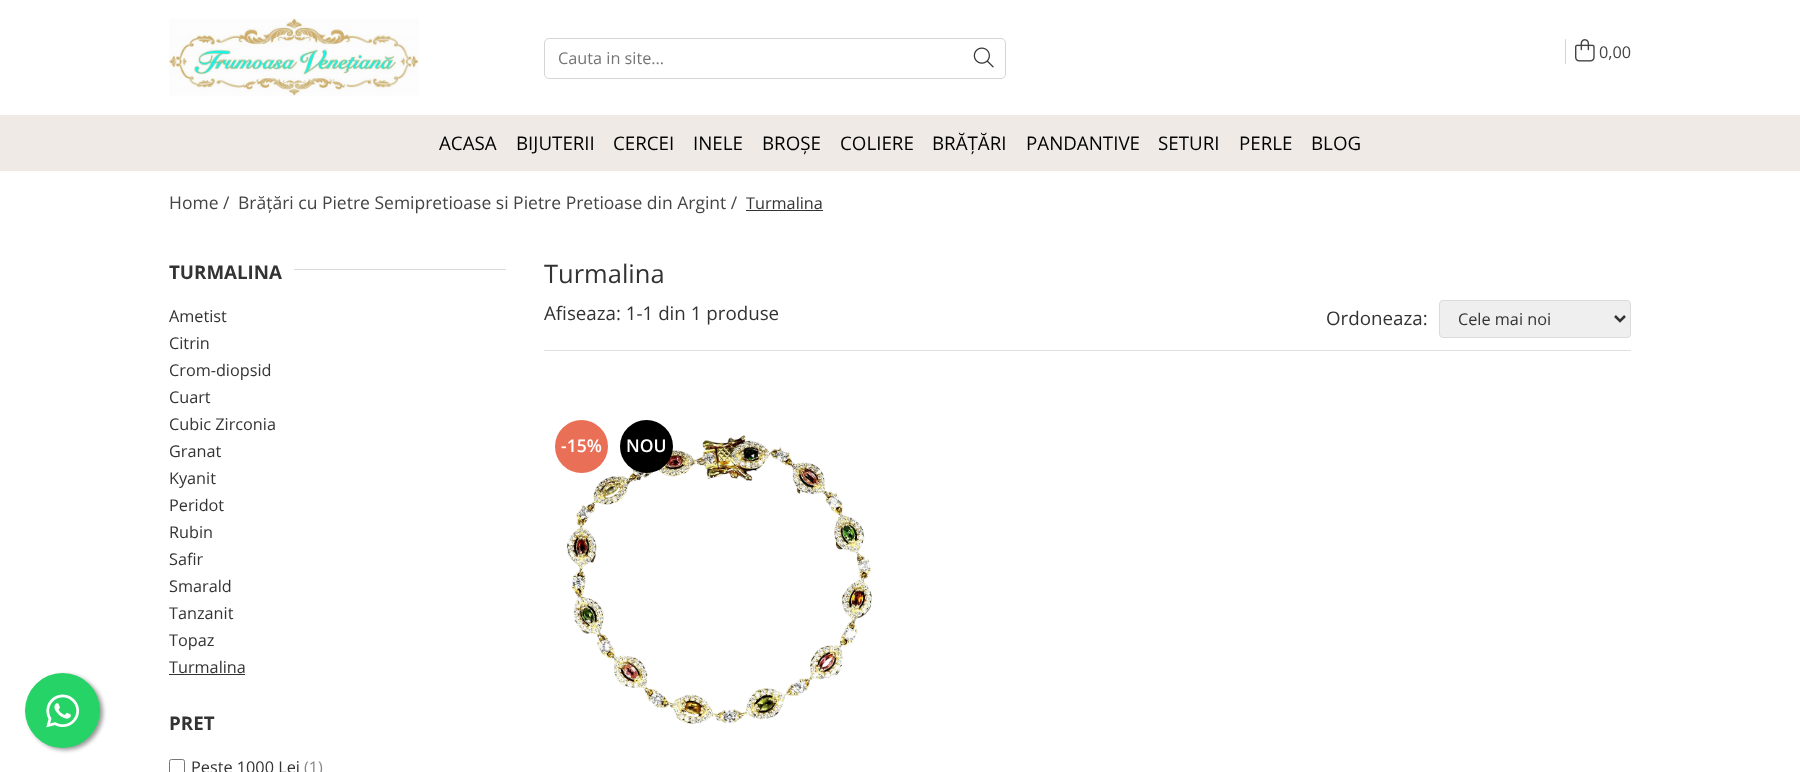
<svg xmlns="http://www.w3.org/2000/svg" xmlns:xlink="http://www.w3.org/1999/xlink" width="1800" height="772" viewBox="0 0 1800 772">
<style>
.cls-1{font:16.25px Open Sans;fill:#757575}
.cls-2{font:16.25px Open Sans;fill:#444444}
.cls-3{font:18.75px Open Sans;fill:#000000}
.cls-4{font:17.5px Open Sans;fill:#444444}
.cls-5{font:16.25px Open Sans;fill:#333333}
.cls-6{font:bold 18.75px Open Sans;fill:#333333}
.cls-7{font:16.25px Open Sans;fill:#888888}
.cls-8{font:25.5px Open Sans;fill:#333333}
.cls-9{font:18.75px Open Sans;fill:#333333}
.cls-10{font:600 17.5px Open Sans;fill:#ffffff}
</style>
<rect width="100%" height="100%" fill="#ffffff"/>
<rect fill="#999999" filter="blur(2px)" x="28" y="675" width="75" height="75" rx="37.5"/>
<circle fill="#25d366" cx="62.5" cy="710.5" r="37.5"/>
<image xlink:href="image0.png" x="46" y="694" width="34" height="34"/>
<image xlink:href="image1.png" x="169" y="18" width="250" height="78"/>
<rect fill="none" stroke="#d5d5d5" x="544.5" y="38.5" width="461" height="40" rx="4.5"/>
<image xlink:href="image2.png" x="973" y="47" width="21" height="21"/>
<rect fill="#d5d5d5" x="1565" y="39" width="1" height="25"/>
<image xlink:href="image3.png" x="1575" y="39" width="20" height="23"/>
<rect fill="#efeae5" x="0" y="115" width="1800" height="56"/>
<rect fill="#333333" x="746" y="210" width="77" height="1"/>
<rect fill="#dbdbdb" x="294" y="269" width="212" height="1"/>
<rect fill="#333333" x="169" y="674" width="76" height="1"/>
<rect fill="none" stroke="#767676" x="169.5" y="759.5" width="15" height="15" rx="2"/>
<rect fill="#dfdfdf" x="544" y="350" width="1087" height="1"/>
<rect fill="#efefef" stroke="#dbdbdb" x="1439.5" y="300.5" width="191" height="37" rx="3.5"/>
<path fill="none" stroke="#333333" stroke-width="2.5" d="M1615 316L1620 321L1625 316"/>
<image xlink:href="image4.png" x="566" y="435" width="306" height="290"/>
<circle fill="#e96f56" cx="581.5" cy="446.5" r="26.5"/>
<circle fill="#000000" cx="646.5" cy="446.5" r="26.5"/>
<text class="cls-1" x="558" y="64">Cauta in site...</text>
<text class="cls-2" x="1599" y="58">0,00</text>
<text class="cls-3" x="439" y="150">ACASA</text>
<text class="cls-3" x="516" y="150">BIJUTERII</text>
<text class="cls-3" x="613" y="150">CERCEI</text>
<text class="cls-3" x="693" y="150">INELE</text>
<text class="cls-3" x="762" y="150">BROȘE</text>
<text class="cls-3" x="840" y="150">COLIERE</text>
<text class="cls-3" x="932" y="150">BRĂȚĂRI</text>
<text class="cls-3" x="1026" y="150">PANDANTIVE</text>
<text class="cls-3" x="1158" y="150">SETURI</text>
<text class="cls-3" x="1239" y="150">PERLE</text>
<text class="cls-3" x="1311" y="150">BLOG</text>
<text class="cls-4" x="169" y="209">Home /</text>
<text class="cls-4" x="238" y="209">Brățări cu Pietre Semipretioase si Pietre Pretioase din Argint /</text>
<text class="cls-5" x="746" y="209">Turmalina</text>
<text class="cls-6" x="169" y="279">TURMALINA</text>
<text class="cls-5"><tspan x="169" y="322">Ametist</tspan><tspan x="169" y="349">Citrin</tspan><tspan x="169" y="376">Crom-diopsid</tspan><tspan x="169" y="403">Cuart</tspan><tspan x="169" y="430">Cubic Zirconia</tspan><tspan x="169" y="457">Granat</tspan><tspan x="169" y="484">Kyanit</tspan><tspan x="169" y="511">Peridot</tspan><tspan x="169" y="538">Rubin</tspan><tspan x="169" y="565">Safir</tspan><tspan x="169" y="592">Smarald</tspan><tspan x="169" y="619">Tanzanit</tspan><tspan x="169" y="646">Topaz</tspan><tspan x="169" y="673">Turmalina</tspan></text>
<text class="cls-6" x="169" y="730">PRET</text>
<text class="cls-5" x="191" y="773">Peste 1000 Lei</text>
<text class="cls-7" x="304" y="773">(1)</text>
<text class="cls-8" x="544" y="283">Turmalina</text>
<text class="cls-9" x="544" y="320">Afiseaza: 1-1 din 1 produse</text>
<text class="cls-9" x="1326" y="325">Ordoneaza:</text>
<text class="cls-5" x="1458" y="325">Cele mai noi</text>
<text class="cls-10" x="561" y="452">-15%</text>
<text class="cls-10" x="626" y="452">NOU</text>
</svg>
